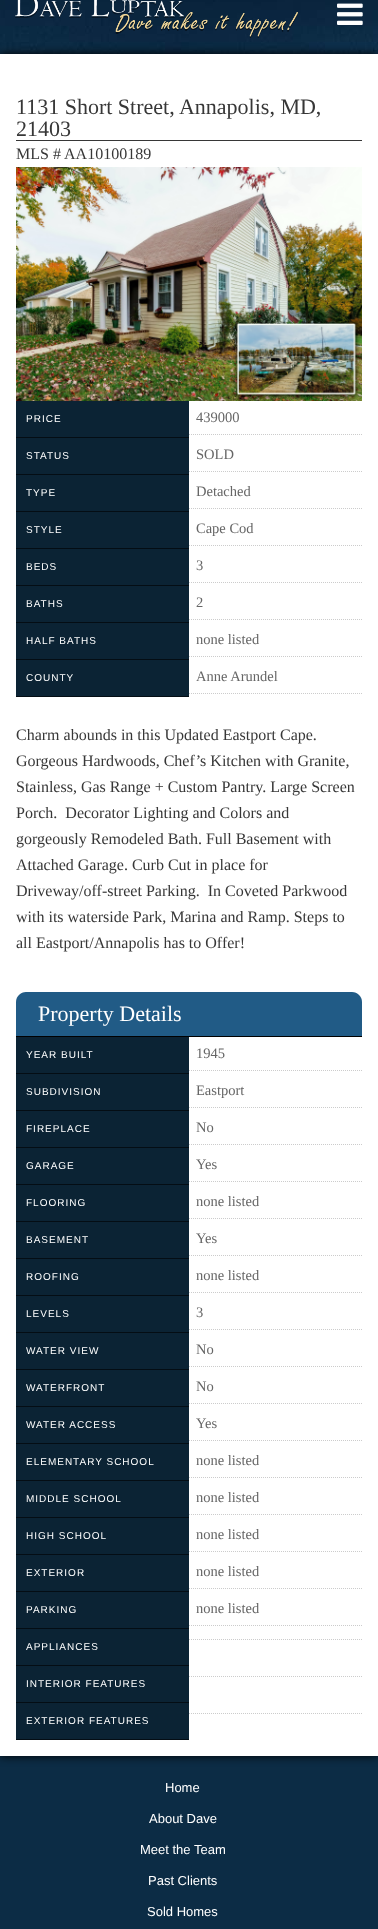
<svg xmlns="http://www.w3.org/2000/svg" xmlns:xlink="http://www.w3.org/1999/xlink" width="378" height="1929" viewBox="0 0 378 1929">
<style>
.cls-1{font:22px Liberation Serif;fill:#373737}
.cls-2{font:16px Liberation Serif;fill:#373737}
.cls-3{font:10px Liberation Sans;letter-spacing:1px;fill:#ffffff}
.cls-4{font:14.5px Liberation Serif;fill:#666666}
.cls-5{font:22px Liberation Serif;fill:#ffffff}
.cls-6{font:13px Liberation Sans;fill:#ffffff}
</style>
<rect width="100%" height="100%" fill="#ffffff"/>
<image xlink:href="image0.png" x="0" y="0" width="378" height="54"/>
<image xlink:href="image1.png" x="15" y="0" width="283" height="38"/>
<image xlink:href="image2.png" x="337" y="3" width="26" height="22"/>
<rect fill="#0c2c45" x="0" y="1756" width="378" height="173"/>
<rect fill="#000000" filter="blur(5px)" x="0" y="54" width="378" height="1702"/>
<rect fill="#ffffff" x="0" y="54" width="378" height="1702"/>
<rect fill="#373737" x="16" y="140" width="346" height="1"/>
<image xlink:href="image3.png" x="16" y="167" width="346" height="234"/>
<rect fill="#0b2334" x="16" y="401" width="173" height="36"/>
<rect fill="#040d14" x="16" y="437" width="173" height="1"/>
<path fill="none" stroke="#cccccc" stroke-dasharray="1 1" d="M189 434.5H362"/>
<rect fill="#0b2334" x="16" y="438" width="173" height="36"/>
<rect fill="#040d14" x="16" y="474" width="173" height="1"/>
<path fill="none" stroke="#cccccc" stroke-dasharray="1 1" d="M189 471.5H362"/>
<rect fill="#0b2334" x="16" y="475" width="173" height="36"/>
<rect fill="#040d14" x="16" y="511" width="173" height="1"/>
<path fill="none" stroke="#cccccc" stroke-dasharray="1 1" d="M189 508.5H362"/>
<rect fill="#0b2334" x="16" y="512" width="173" height="36"/>
<rect fill="#040d14" x="16" y="548" width="173" height="1"/>
<path fill="none" stroke="#cccccc" stroke-dasharray="1 1" d="M189 545.5H362"/>
<rect fill="#0b2334" x="16" y="549" width="173" height="36"/>
<rect fill="#040d14" x="16" y="585" width="173" height="1"/>
<path fill="none" stroke="#cccccc" stroke-dasharray="1 1" d="M189 582.5H362"/>
<rect fill="#0b2334" x="16" y="586" width="173" height="36"/>
<rect fill="#040d14" x="16" y="622" width="173" height="1"/>
<path fill="none" stroke="#cccccc" stroke-dasharray="1 1" d="M189 619.5H362"/>
<rect fill="#0b2334" x="16" y="623" width="173" height="36"/>
<rect fill="#040d14" x="16" y="659" width="173" height="1"/>
<path fill="none" stroke="#cccccc" stroke-dasharray="1 1" d="M189 656.5H362"/>
<rect fill="#0b2334" x="16" y="660" width="173" height="36"/>
<rect fill="#040d14" x="16" y="696" width="173" height="1"/>
<path fill="none" stroke="#cccccc" stroke-dasharray="1 1" d="M189 693.5H362"/>
<path fill="#215b86" d="M26 992H352C357.5 992 362 996.5 362 1002V1037H16V1002C16 996.5 20.5 992 26 992Z"/>
<rect fill="#000000" x="16" y="1036" width="346" height="1"/>
<rect fill="#0b2334" x="16" y="1037" width="173" height="36"/>
<rect fill="#040d14" x="16" y="1073" width="173" height="1"/>
<path fill="none" stroke="#cccccc" stroke-dasharray="1 1" d="M189 1070.5H362"/>
<rect fill="#0b2334" x="16" y="1074" width="173" height="36"/>
<rect fill="#040d14" x="16" y="1110" width="173" height="1"/>
<path fill="none" stroke="#cccccc" stroke-dasharray="1 1" d="M189 1107.5H362"/>
<rect fill="#0b2334" x="16" y="1111" width="173" height="36"/>
<rect fill="#040d14" x="16" y="1147" width="173" height="1"/>
<path fill="none" stroke="#cccccc" stroke-dasharray="1 1" d="M189 1144.5H362"/>
<rect fill="#0b2334" x="16" y="1148" width="173" height="36"/>
<rect fill="#040d14" x="16" y="1184" width="173" height="1"/>
<path fill="none" stroke="#cccccc" stroke-dasharray="1 1" d="M189 1181.5H362"/>
<rect fill="#0b2334" x="16" y="1185" width="173" height="36"/>
<rect fill="#040d14" x="16" y="1221" width="173" height="1"/>
<path fill="none" stroke="#cccccc" stroke-dasharray="1 1" d="M189 1218.5H362"/>
<rect fill="#0b2334" x="16" y="1222" width="173" height="36"/>
<rect fill="#040d14" x="16" y="1258" width="173" height="1"/>
<path fill="none" stroke="#cccccc" stroke-dasharray="1 1" d="M189 1255.5H362"/>
<rect fill="#0b2334" x="16" y="1259" width="173" height="36"/>
<rect fill="#040d14" x="16" y="1295" width="173" height="1"/>
<path fill="none" stroke="#cccccc" stroke-dasharray="1 1" d="M189 1292.5H362"/>
<rect fill="#0b2334" x="16" y="1296" width="173" height="36"/>
<rect fill="#040d14" x="16" y="1332" width="173" height="1"/>
<path fill="none" stroke="#cccccc" stroke-dasharray="1 1" d="M189 1329.5H362"/>
<rect fill="#0b2334" x="16" y="1333" width="173" height="36"/>
<rect fill="#040d14" x="16" y="1369" width="173" height="1"/>
<path fill="none" stroke="#cccccc" stroke-dasharray="1 1" d="M189 1366.5H362"/>
<rect fill="#0b2334" x="16" y="1370" width="173" height="36"/>
<rect fill="#040d14" x="16" y="1406" width="173" height="1"/>
<path fill="none" stroke="#cccccc" stroke-dasharray="1 1" d="M189 1403.5H362"/>
<rect fill="#0b2334" x="16" y="1407" width="173" height="36"/>
<rect fill="#040d14" x="16" y="1443" width="173" height="1"/>
<path fill="none" stroke="#cccccc" stroke-dasharray="1 1" d="M189 1440.5H362"/>
<rect fill="#0b2334" x="16" y="1444" width="173" height="36"/>
<rect fill="#040d14" x="16" y="1480" width="173" height="1"/>
<path fill="none" stroke="#cccccc" stroke-dasharray="1 1" d="M189 1477.5H362"/>
<rect fill="#0b2334" x="16" y="1481" width="173" height="36"/>
<rect fill="#040d14" x="16" y="1517" width="173" height="1"/>
<path fill="none" stroke="#cccccc" stroke-dasharray="1 1" d="M189 1514.5H362"/>
<rect fill="#0b2334" x="16" y="1518" width="173" height="36"/>
<rect fill="#040d14" x="16" y="1554" width="173" height="1"/>
<path fill="none" stroke="#cccccc" stroke-dasharray="1 1" d="M189 1551.5H362"/>
<rect fill="#0b2334" x="16" y="1555" width="173" height="36"/>
<rect fill="#040d14" x="16" y="1591" width="173" height="1"/>
<path fill="none" stroke="#cccccc" stroke-dasharray="1 1" d="M189 1588.5H362"/>
<rect fill="#0b2334" x="16" y="1592" width="173" height="36"/>
<rect fill="#040d14" x="16" y="1628" width="173" height="1"/>
<path fill="none" stroke="#cccccc" stroke-dasharray="1 1" d="M189 1625.5H362"/>
<path fill="none" stroke="#cccccc" stroke-dasharray="1 1" d="M189 1639.5H362"/>
<rect fill="#0b2334" x="16" y="1629" width="173" height="36"/>
<rect fill="#040d14" x="16" y="1665" width="173" height="1"/>
<path fill="none" stroke="#cccccc" stroke-dasharray="1 1" d="M189 1676.5H362"/>
<rect fill="#0b2334" x="16" y="1666" width="173" height="36"/>
<rect fill="#040d14" x="16" y="1702" width="173" height="1"/>
<path fill="none" stroke="#cccccc" stroke-dasharray="1 1" d="M189 1713.5H362"/>
<rect fill="#0b2334" x="16" y="1703" width="173" height="36"/>
<rect fill="#040d14" x="16" y="1739" width="173" height="1"/>
<text class="cls-1"><tspan x="16" y="114">1131 Short Street, Annapolis, MD,</tspan><tspan x="16" y="136">21403</tspan></text>
<text class="cls-2" x="16" y="159">MLS # AA10100189</text>
<text class="cls-3" x="26" y="422">PRICE</text>
<text class="cls-4" x="196" y="422">439000</text>
<text class="cls-3" x="26" y="459">STATUS</text>
<text class="cls-4" x="196" y="459">SOLD</text>
<text class="cls-3" x="26" y="496">TYPE</text>
<text class="cls-4" x="196" y="496">Detached</text>
<text class="cls-3" x="26" y="533">STYLE</text>
<text class="cls-4" x="196" y="533">Cape Cod</text>
<text class="cls-3" x="26" y="570">BEDS</text>
<text class="cls-4" x="196" y="570">3</text>
<text class="cls-3" x="26" y="607">BATHS</text>
<text class="cls-4" x="196" y="607">2</text>
<text class="cls-3" x="26" y="644">HALF BATHS</text>
<text class="cls-4" x="196" y="644">none listed</text>
<text class="cls-3" x="26" y="681">COUNTY</text>
<text class="cls-4" x="196" y="681">Anne Arundel</text>
<text class="cls-2" xml:space="preserve"><tspan x="16" y="740">Charm abounds in this Updated Eastport Cape.</tspan><tspan x="16" y="766">Gorgeous Hardwoods, Chef’s Kitchen with Granite,</tspan><tspan x="16" y="792">Stainless, Gas Range + Custom Pantry. Large Screen</tspan><tspan x="16" y="818">Porch.  Decorator Lighting and Colors and</tspan><tspan x="16" y="844">gorgeously Remodeled Bath. Full Basement with</tspan><tspan x="16" y="870">Attached Garage. Curb Cut in place for</tspan><tspan x="16" y="896">Driveway/off-street Parking.  In Coveted Parkwood</tspan><tspan x="16" y="922">with its waterside Park, Marina and Ramp. Steps to</tspan><tspan x="16" y="948">all Eastport/Annapolis has to Offer!</tspan></text>
<text class="cls-5" x="38" y="1021">Property Details</text>
<text class="cls-3" x="26" y="1058">YEAR BUILT</text>
<text class="cls-4" x="196" y="1058">1945</text>
<text class="cls-3" x="26" y="1095">SUBDIVISION</text>
<text class="cls-4" x="196" y="1095">Eastport</text>
<text class="cls-3" x="26" y="1132">FIREPLACE</text>
<text class="cls-4" x="196" y="1132">No</text>
<text class="cls-3" x="26" y="1169">GARAGE</text>
<text class="cls-4" x="196" y="1169">Yes</text>
<text class="cls-3" x="26" y="1206">FLOORING</text>
<text class="cls-4" x="196" y="1206">none listed</text>
<text class="cls-3" x="26" y="1243">BASEMENT</text>
<text class="cls-4" x="196" y="1243">Yes</text>
<text class="cls-3" x="26" y="1280">ROOFING</text>
<text class="cls-4" x="196" y="1280">none listed</text>
<text class="cls-3" x="26" y="1317">LEVELS</text>
<text class="cls-4" x="196" y="1317">3</text>
<text class="cls-3" x="26" y="1354">WATER VIEW</text>
<text class="cls-4" x="196" y="1354">No</text>
<text class="cls-3" x="26" y="1391">WATERFRONT</text>
<text class="cls-4" x="196" y="1391">No</text>
<text class="cls-3" x="26" y="1428">WATER ACCESS</text>
<text class="cls-4" x="196" y="1428">Yes</text>
<text class="cls-3" x="26" y="1465">ELEMENTARY SCHOOL</text>
<text class="cls-4" x="196" y="1465">none listed</text>
<text class="cls-3" x="26" y="1502">MIDDLE SCHOOL</text>
<text class="cls-4" x="196" y="1502">none listed</text>
<text class="cls-3" x="26" y="1539">HIGH SCHOOL</text>
<text class="cls-4" x="196" y="1539">none listed</text>
<text class="cls-3" x="26" y="1576">EXTERIOR</text>
<text class="cls-4" x="196" y="1576">none listed</text>
<text class="cls-3" x="26" y="1613">PARKING</text>
<text class="cls-4" x="196" y="1613">none listed</text>
<text class="cls-3" x="26" y="1650">APPLIANCES</text>
<text class="cls-3" x="26" y="1687">INTERIOR FEATURES</text>
<text class="cls-3" x="26" y="1724">EXTERIOR FEATURES</text>
<text class="cls-6" x="165" y="1792">Home</text>
<text class="cls-6" x="149" y="1823">About Dave</text>
<text class="cls-6" x="140" y="1854">Meet the Team</text>
<text class="cls-6" x="148" y="1885">Past Clients</text>
<text class="cls-6" x="147" y="1916">Sold Homes</text>
</svg>
